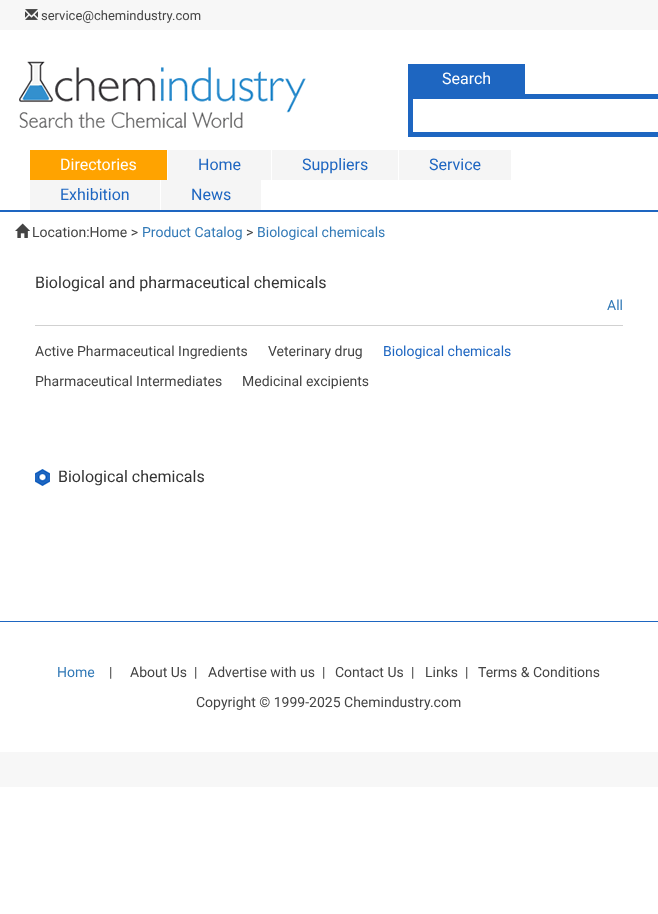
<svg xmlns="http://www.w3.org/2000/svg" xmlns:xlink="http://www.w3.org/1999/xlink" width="658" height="914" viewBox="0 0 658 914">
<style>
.cls-1{font:13px Roboto;fill:#444444}
.cls-2{font:16px Roboto;fill:#ffffff}
.cls-3{font:16px Roboto;fill:#1e66c1}
.cls-4{font:14px Roboto;fill:#444444}
.cls-5{font:14px Roboto;fill:#337ab7}
.cls-6{font:16px Roboto;fill:#333333}
.cls-7{font:14px Roboto;fill:#1e66c1}
</style>
<rect width="100%" height="100%" fill="#ffffff"/>
<rect fill="#f7f7f7" x="0" y="0" width="658" height="30"/>
<image xlink:href="image0.png" x="25" y="9" width="13" height="11"/>
<image xlink:href="image1.png" x="19" y="61" width="287" height="67"/>
<rect fill="#1e66c1" x="408" y="64" width="117" height="30"/>
<rect fill="#1e66c1" x="408" y="94" width="250" height="43"/>
<rect fill="#ffffff" x="413" y="99" width="245" height="33"/>
<rect fill="#1e66c1" x="0" y="210" width="658" height="2"/>
<rect fill="#ffa300" x="30" y="150" width="137" height="30"/>
<rect fill="#f5f5f5" x="168" y="150" width="103" height="30"/>
<rect fill="#f5f5f5" x="272" y="150" width="126" height="30"/>
<rect fill="#f5f5f5" x="399" y="150" width="112" height="30"/>
<rect fill="#f5f5f5" x="30" y="180" width="130" height="30"/>
<rect fill="#f5f5f5" x="161" y="180" width="100" height="30"/>
<image xlink:href="image2.png" x="15" y="223" width="15" height="15"/>
<rect fill="#d1d1d1" x="35" y="325" width="588" height="1"/>
<image xlink:href="image3.png" x="35" y="469" width="15" height="17"/>
<rect fill="#1e66c1" x="0" y="621" width="658" height="1"/>
<rect fill="#f7f7f7" x="0" y="752" width="658" height="35"/>
<text class="cls-1" x="41" y="20">service@chemindustry.com</text>
<text class="cls-2" x="442" y="84">Search</text>
<text class="cls-2" x="60" y="170">Directories</text>
<text class="cls-3" x="198" y="170">Home</text>
<text class="cls-3" x="302" y="170">Suppliers</text>
<text class="cls-3" x="429" y="170">Service</text>
<text class="cls-3" x="60" y="200">Exhibition</text>
<text class="cls-3" x="191" y="200">News</text>
<text class="cls-4" x="32" y="237">Location:Home &gt;</text>
<text class="cls-5" x="142" y="237">Product Catalog</text>
<text class="cls-4" x="246" y="237">&gt;</text>
<text class="cls-5" x="257" y="237">Biological chemicals</text>
<text class="cls-6" x="35" y="288">Biological and pharmaceutical chemicals</text>
<text class="cls-5" x="607" y="310">All</text>
<text class="cls-4" x="35" y="356">Active Pharmaceutical Ingredients</text>
<text class="cls-4" x="268" y="356">Veterinary drug</text>
<text class="cls-7" x="383" y="356">Biological chemicals</text>
<text class="cls-4" x="35" y="386">Pharmaceutical Intermediates</text>
<text class="cls-4" x="242" y="386">Medicinal excipients</text>
<text class="cls-6" x="58" y="482">Biological chemicals</text>
<text class="cls-5" x="57" y="677">Home</text>
<text class="cls-4" x="109" y="677">|</text>
<text class="cls-4" x="130" y="677">About Us</text>
<text class="cls-4" x="194" y="677">|</text>
<text class="cls-4" x="208" y="677">Advertise with us</text>
<text class="cls-4" x="322" y="677">|</text>
<text class="cls-4" x="335" y="677">Contact Us</text>
<text class="cls-4" x="411" y="677">|</text>
<text class="cls-4" x="425" y="677">Links</text>
<text class="cls-4" x="465" y="677">|</text>
<text class="cls-4" x="478" y="677">Terms &amp; Conditions</text>
<text class="cls-4" x="196" y="707">Copyright © 1999-2025 Chemindustry.com</text>
</svg>
